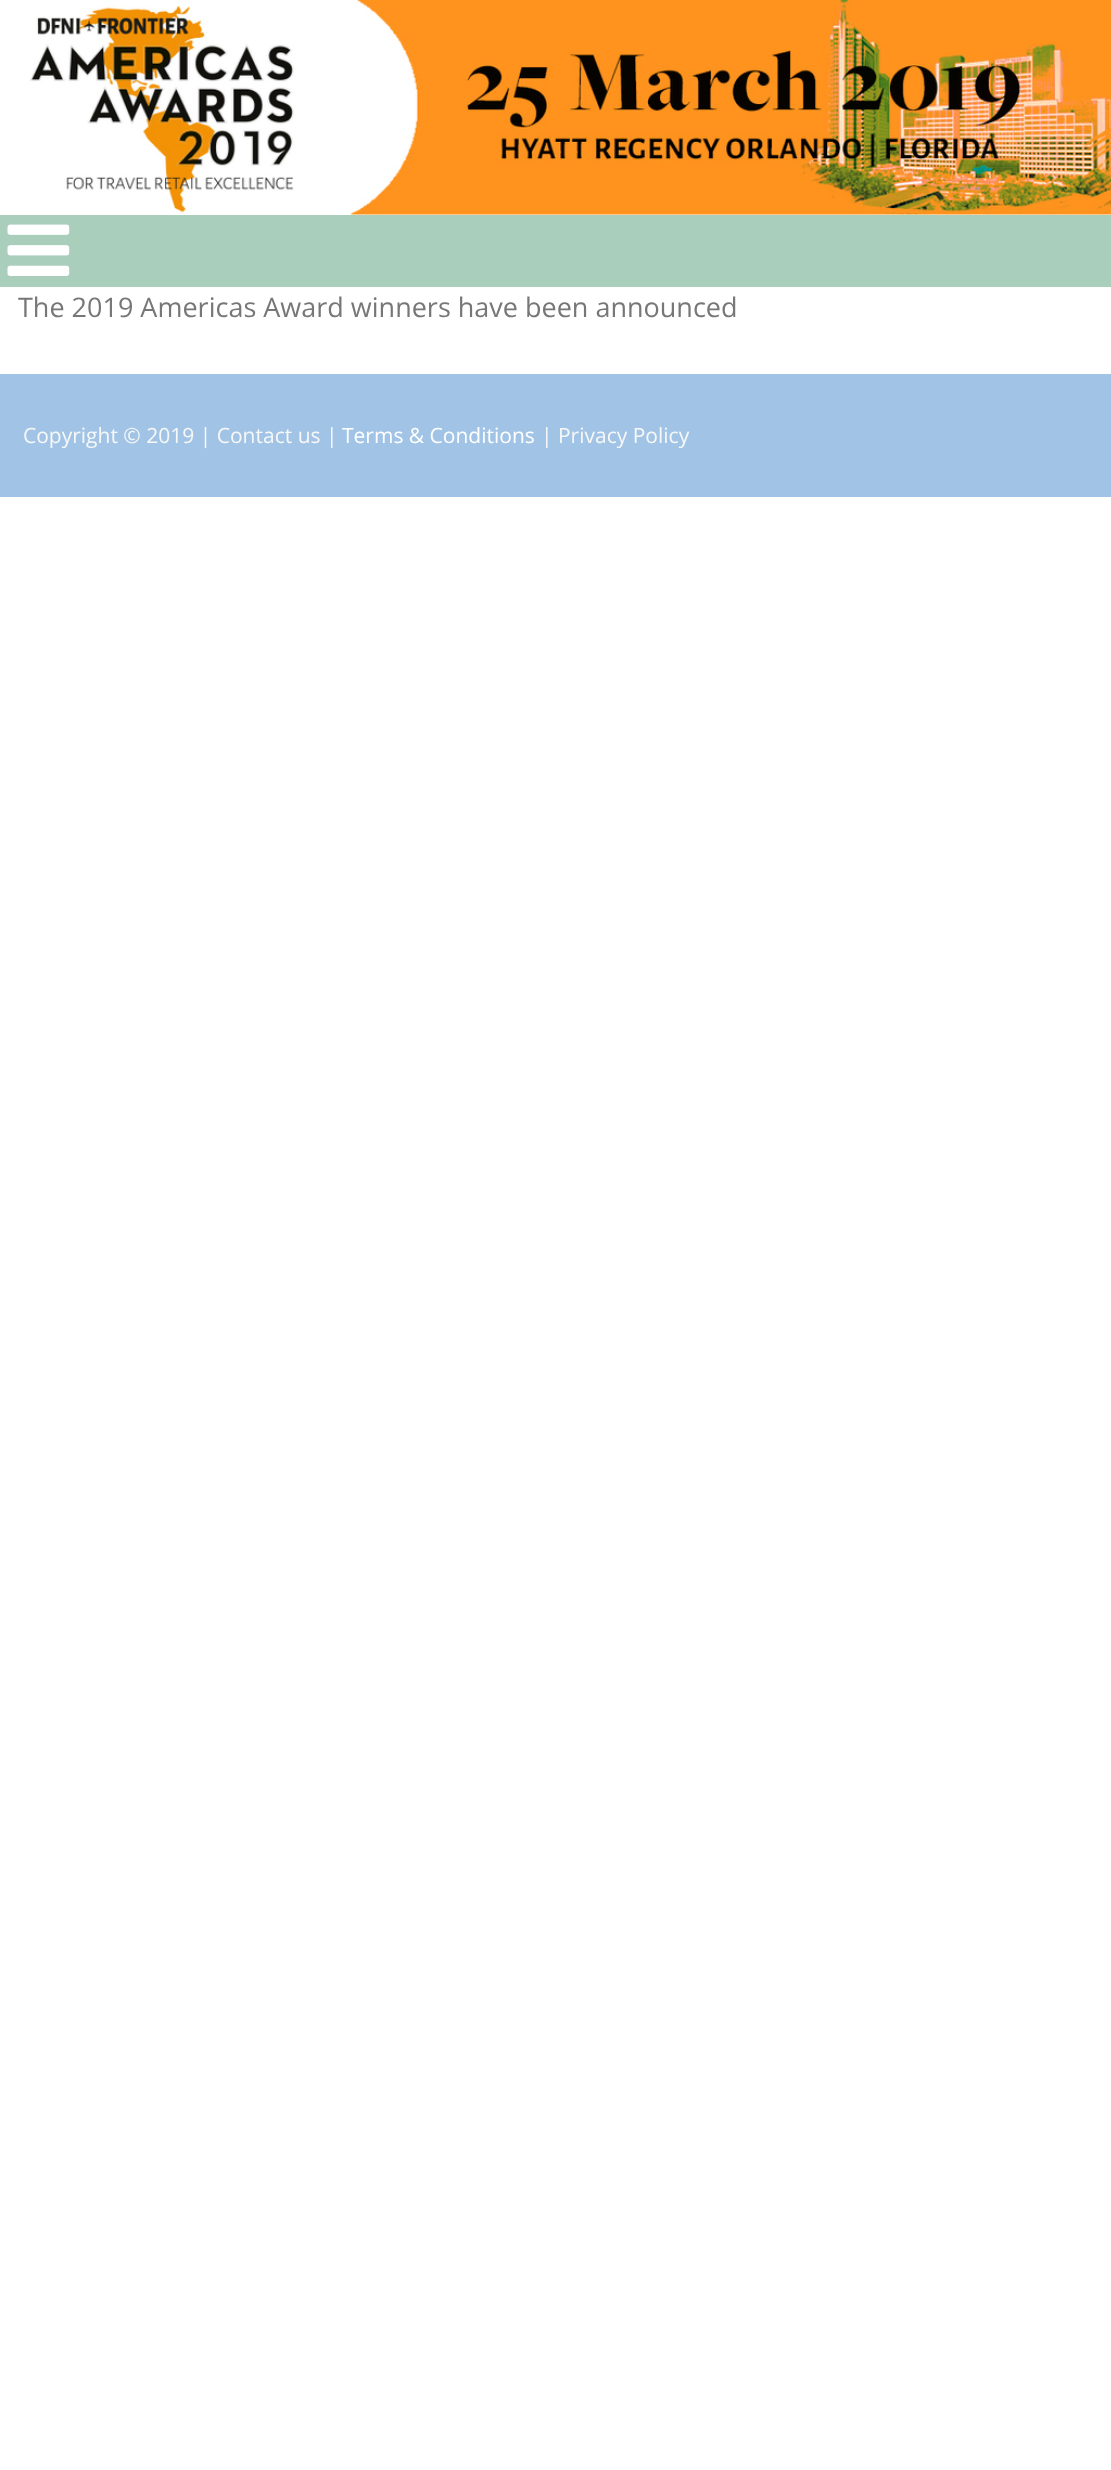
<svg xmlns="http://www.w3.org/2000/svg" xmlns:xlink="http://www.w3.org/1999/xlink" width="1111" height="2470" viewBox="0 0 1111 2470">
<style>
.cls-1{font:27px Open Sans;fill:#777777}
.cls-2{font:21px Open Sans;fill:#f7f7f7}
.cls-3{font:21px Open Sans;fill:#ffffff}
</style>
<rect width="100%" height="100%" fill="#ffffff"/>
<image xlink:href="image0.png" x="29" y="0" width="1082" height="215"/>
<rect fill="#a9cebc" x="0" y="215" width="1111" height="72"/>
<image xlink:href="image1.png" x="7" y="224" width="63" height="52"/>
<rect fill="#a1c4e6" x="0" y="374" width="1111" height="123"/>
<text class="cls-1" x="18" y="317">The 2019 Americas Award winners have been announced</text>
<text class="cls-2" x="23" y="443">Copyright © 2019 | Contact us |</text>
<text class="cls-3" x="342" y="443">Terms &amp; Conditions</text>
<text class="cls-2" x="541" y="443">| Privacy Policy</text>
</svg>
